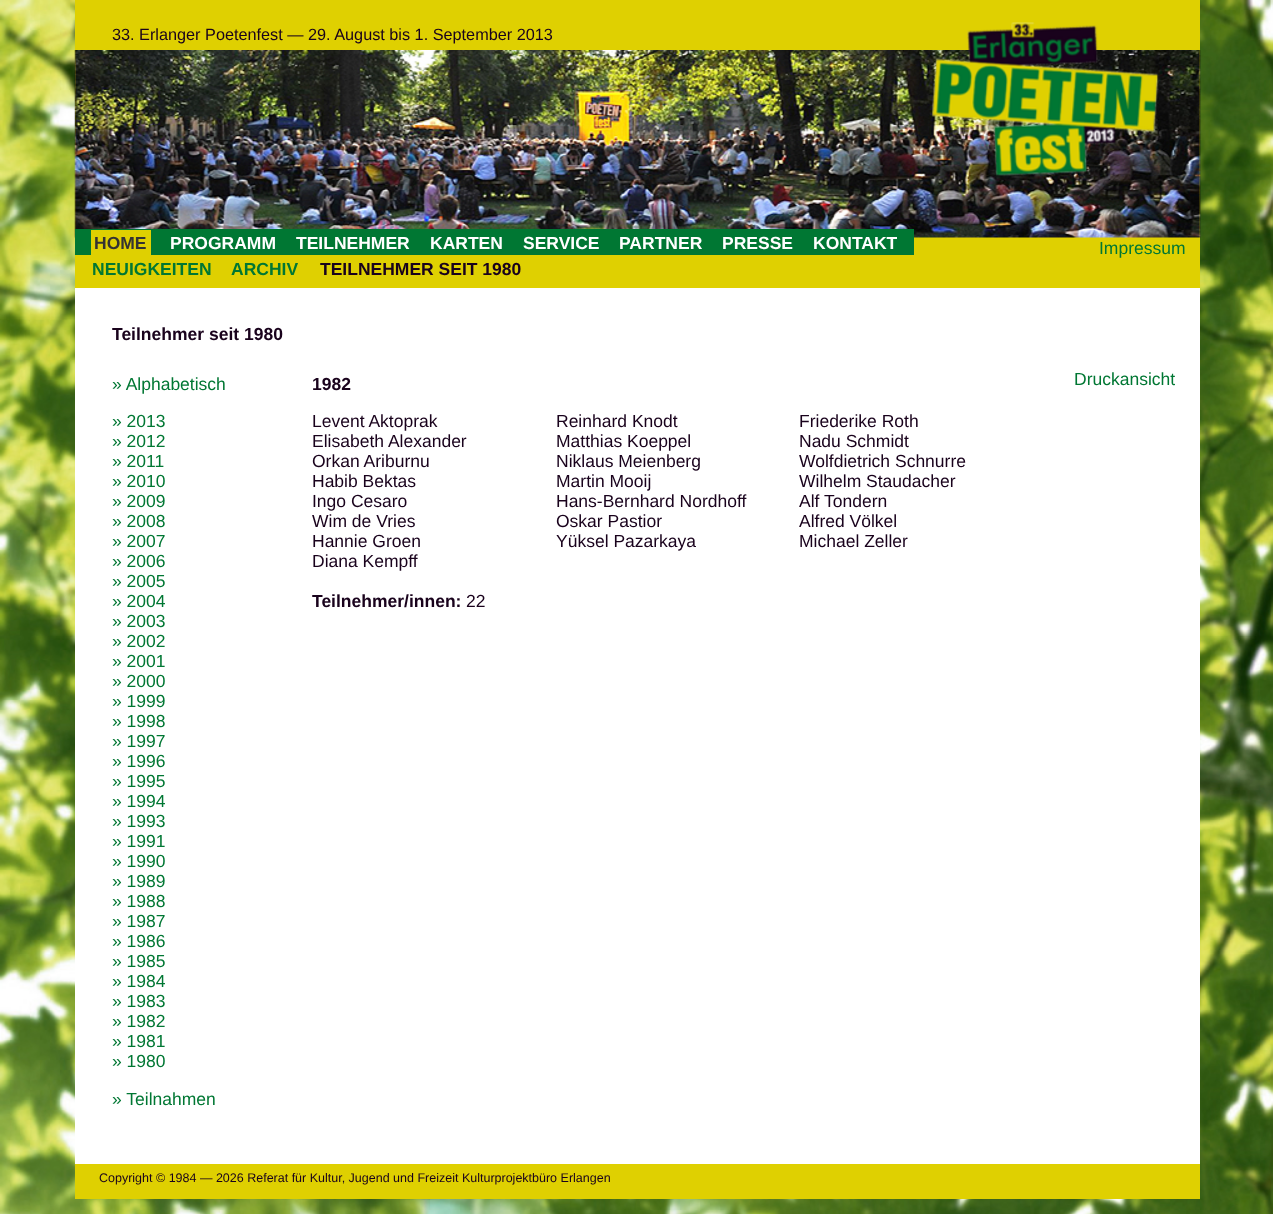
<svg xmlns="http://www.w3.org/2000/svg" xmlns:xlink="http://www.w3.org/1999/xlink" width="1273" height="1214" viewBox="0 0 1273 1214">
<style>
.cls-1{font:16.25px Liberation Sans;fill:#19021c}
.cls-2{font:bold 17.5px Liberation Sans;fill:#333333}
.cls-3{font:bold 17.5px Liberation Sans;fill:#ffffff}
.cls-4{font:17.5px Liberation Sans;fill:#007733}
.cls-5{font:bold 17.5px Liberation Sans;fill:#007733}
.cls-6{font:bold 17.5px Liberation Sans;fill:#19021c}
.cls-7{font:17.5px Liberation Sans;fill:#19021c}
.cls-8{font:12.5px Liberation Sans;fill:#19021c}
</style>
<rect width="100%" height="100%" fill="#ffffff"/>
<image xlink:href="image0.png" x="0" y="0" width="1273" height="1214"/>
<rect fill="#ffffff" x="75" y="288" width="1125" height="876"/>
<rect fill="#dfd001" x="75" y="0" width="1125" height="288"/>
<image xlink:href="image2.png" x="74" y="50" width="1127" height="188"/>
<image xlink:href="image1.png" x="932" y="22" width="227" height="154"/>
<rect fill="#007733" x="75" y="229" width="839" height="26"/>
<rect fill="#dfd001" x="91" y="230" width="60" height="25"/>
<rect fill="#dfd001" x="75" y="1164" width="1125" height="35"/>
<text class="cls-1" x="112" y="40">33. Erlanger Poetenfest — 29. August bis 1. September 2013</text>
<text class="cls-2" x="94" y="249">HOME</text>
<text class="cls-3" x="170" y="249">PROGRAMM</text>
<text class="cls-3" x="296" y="249">TEILNEHMER</text>
<text class="cls-3" x="430" y="249">KARTEN</text>
<text class="cls-3" x="523" y="249">SERVICE</text>
<text class="cls-3" x="619" y="249">PARTNER</text>
<text class="cls-3" x="722" y="249">PRESSE</text>
<text class="cls-3" x="813" y="249">KONTAKT</text>
<text class="cls-4" x="1099" y="254">Impressum</text>
<text class="cls-5" x="92" y="275">NEUIGKEITEN</text>
<text class="cls-5" x="231" y="275">ARCHIV</text>
<text class="cls-6" x="320" y="275">TEILNEHMER SEIT 1980</text>
<text class="cls-6" x="112" y="340">Teilnehmer seit 1980</text>
<text class="cls-4" x="112" y="390">» Alphabetisch</text>
<text class="cls-4"><tspan x="112" y="427">» 2013</tspan><tspan x="112" y="447">» 2012</tspan><tspan x="112" y="467">» 2011</tspan><tspan x="112" y="487">» 2010</tspan><tspan x="112" y="507">» 2009</tspan><tspan x="112" y="527">» 2008</tspan><tspan x="112" y="547">» 2007</tspan><tspan x="112" y="567">» 2006</tspan><tspan x="112" y="587">» 2005</tspan><tspan x="112" y="607">» 2004</tspan><tspan x="112" y="627">» 2003</tspan><tspan x="112" y="647">» 2002</tspan><tspan x="112" y="667">» 2001</tspan><tspan x="112" y="687">» 2000</tspan><tspan x="112" y="707">» 1999</tspan><tspan x="112" y="727">» 1998</tspan><tspan x="112" y="747">» 1997</tspan><tspan x="112" y="767">» 1996</tspan><tspan x="112" y="787">» 1995</tspan><tspan x="112" y="807">» 1994</tspan><tspan x="112" y="827">» 1993</tspan><tspan x="112" y="847">» 1991</tspan><tspan x="112" y="867">» 1990</tspan><tspan x="112" y="887">» 1989</tspan><tspan x="112" y="907">» 1988</tspan><tspan x="112" y="927">» 1987</tspan><tspan x="112" y="947">» 1986</tspan><tspan x="112" y="967">» 1985</tspan><tspan x="112" y="987">» 1984</tspan><tspan x="112" y="1007">» 1983</tspan><tspan x="112" y="1027">» 1982</tspan><tspan x="112" y="1047">» 1981</tspan><tspan x="112" y="1067">» 1980</tspan></text>
<text class="cls-4" x="112" y="1105">» Teilnahmen</text>
<text class="cls-6" x="312" y="390">1982</text>
<text class="cls-7"><tspan x="312" y="427">Levent Aktoprak</tspan><tspan x="312" y="447">Elisabeth Alexander</tspan><tspan x="312" y="467">Orkan Ariburnu</tspan><tspan x="312" y="487">Habib Bektas</tspan><tspan x="312" y="507">Ingo Cesaro</tspan><tspan x="312" y="527">Wim de Vries</tspan><tspan x="312" y="547">Hannie Groen</tspan><tspan x="312" y="567">Diana Kempff</tspan></text>
<text class="cls-6" x="312" y="607">Teilnehmer/innen:</text>
<text class="cls-7" x="466" y="607">22</text>
<text class="cls-7"><tspan x="556" y="427">Reinhard Knodt</tspan><tspan x="556" y="447">Matthias Koeppel</tspan><tspan x="556" y="467">Niklaus Meienberg</tspan><tspan x="556" y="487">Martin Mooij</tspan><tspan x="556" y="507">Hans-Bernhard Nordhoff</tspan><tspan x="556" y="527">Oskar Pastior</tspan><tspan x="556" y="547">Yüksel Pazarkaya</tspan></text>
<text class="cls-7"><tspan x="799" y="427">Friederike Roth</tspan><tspan x="799" y="447">Nadu Schmidt</tspan><tspan x="799" y="467">Wolfdietrich Schnurre</tspan><tspan x="799" y="487">Wilhelm Staudacher</tspan><tspan x="799" y="507">Alf Tondern</tspan><tspan x="799" y="527">Alfred Völkel</tspan><tspan x="799" y="547">Michael Zeller</tspan></text>
<text class="cls-4" x="1074" y="385">Druckansicht</text>
<text class="cls-8" x="99" y="1182">Copyright © 1984 — 2026 Referat für Kultur, Jugend und Freizeit Kulturprojektbüro Erlangen</text>
</svg>
